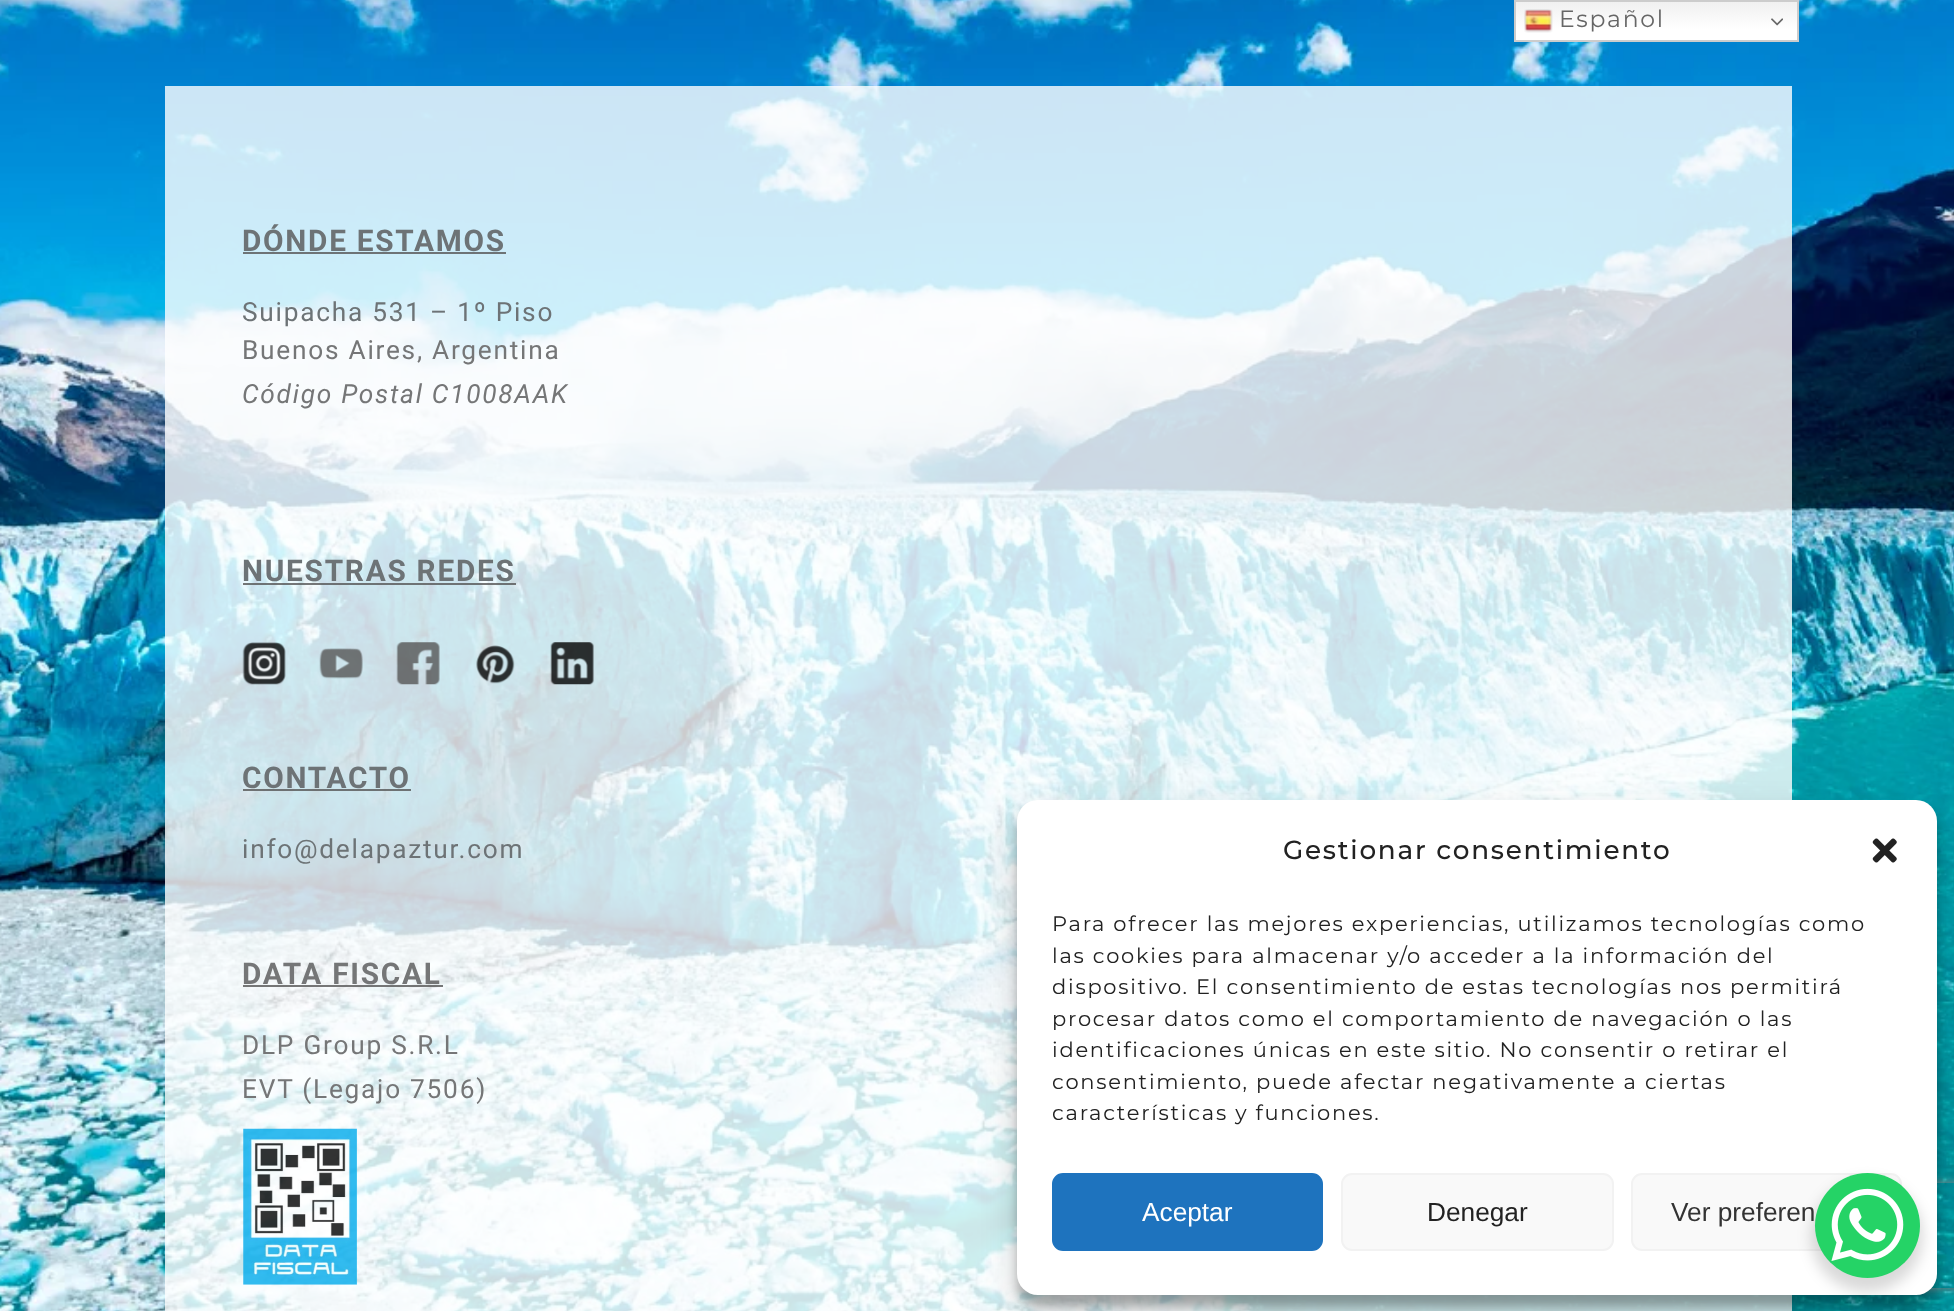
<svg xmlns="http://www.w3.org/2000/svg" xmlns:xlink="http://www.w3.org/1999/xlink" width="1954" height="1311" viewBox="0 0 1954 1311">
<style>
.cls-1{font:23.5px Montserrat;letter-spacing:1.75px;fill:#666666}
.cls-2{font:bold 29.75px Roboto;letter-spacing:1.75px;fill:#6d7376}
.cls-3{font:26.25px Roboto;letter-spacing:1.75px;fill:#6d7376}
.cls-4{font:26.25px Roboto;letter-spacing:1.75px;fill:#757677}
.cls-5{font:italic 26.25px Roboto;letter-spacing:1.75px;fill:#757677}
.cls-6{font:bold 29.75px Roboto;letter-spacing:1.75px;fill:#757677}
.cls-7{font:500 26.25px Montserrat;letter-spacing:1.75px;fill:#222222}
.cls-8{font:21px Montserrat;letter-spacing:1.75px;fill:#222222}
.cls-9{font:26.25px Liberation Sans;fill:#ffffff}
.cls-10{font:26.25px Liberation Sans;fill:#222222}
.cls-11{font:26.25px Liberation Sans;fill:#333333}
</style>
<defs>
<linearGradient id="g1" gradientUnits="userSpaceOnUse" x1="1656" y1="0" x2="1656" y2="42"><stop offset="0" stop-color="#efefef"/><stop offset="0.7" stop-color="#ffffff"/></linearGradient>
<clipPath id="clip1"><path d="M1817 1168H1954V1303H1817ZM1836 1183H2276C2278 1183 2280 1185 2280 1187V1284C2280 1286 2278 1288 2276 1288H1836C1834 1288 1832 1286 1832 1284V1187C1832 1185 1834 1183 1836 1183Z" clip-rule="evenodd"/></clipPath>
</defs>
<rect width="100%" height="100%" fill="#ffffff"/>
<image xlink:href="image2.png" x="0" y="0" width="1954" height="1311"/>
<rect fill="url(#g1)" x="1516" y="2" width="281" height="38"/>
<rect fill="none" stroke="#cccccc" stroke-width="2" x="1515" y="1" width="283" height="40"/>
<image xlink:href="image0.png" x="1524" y="9" width="29" height="24"/>
<image xlink:href="image1.png" x="1771" y="18" width="12" height="8"/>
<rect fill="#ffffff" fill-opacity="0.8" x="165" y="86" width="1627" height="1225"/>
<rect fill="#6d7376" x="243" y="252" width="263" height="2"/>
<rect fill="#555555" fill-opacity="0.8" x="243" y="583" width="273" height="2"/>
<image xlink:href="image3.png" x="242" y="642" width="44" height="43"/>
<image xlink:href="image4.png" x="319" y="648" width="44" height="31"/>
<image xlink:href="image5.png" x="396" y="642" width="44" height="43"/>
<image xlink:href="image6.png" x="476" y="645" width="39" height="39"/>
<image xlink:href="image7.png" x="550" y="642" width="44" height="43"/>
<rect fill="#555555" fill-opacity="0.8" x="243" y="789" width="168" height="2"/>
<rect fill="#555555" fill-opacity="0.8" x="243" y="985" width="200" height="2"/>
<image xlink:href="image8.png" x="243" y="1128" width="114" height="157"/>
<rect fill="#000000" fill-opacity="0.23" filter="blur(5px)" x="1017" y="810" width="920" height="496" rx="21"/>
<rect fill="#000000" fill-opacity="0.19" filter="blur(17.5px)" x="1017" y="817" width="920" height="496" rx="21"/>
<g clip-path="url(#clip1)">
<rect fill="#808080" filter="blur(4.5px)" x="1832" y="1183" width="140" height="105" rx="4"/>
</g>
<rect fill="#ffffff" x="1017" y="800" width="920" height="495" rx="21"/>
<image xlink:href="image9.png" x="1872" y="838" width="25" height="25"/>
<rect fill="#1e73be" stroke="#1e73be" stroke-width="2" x="1053" y="1174" width="269" height="76" rx="10"/>
<rect fill="#f9f9f9" stroke="#f2f2f2" stroke-width="2" x="1342" y="1174" width="271" height="76" rx="10"/>
<rect fill="#f9f9f9" stroke="#f2f2f2" stroke-width="2" x="1632" y="1174" width="269" height="76" rx="10"/>
<rect fill="#000000" fill-opacity="0.15" filter="blur(7px)" x="1811" y="1180" width="112" height="112" rx="56"/>
<circle fill="#25d366" cx="1867.5" cy="1225.5" r="52.5"/>
<image xlink:href="image10.png" x="1831" y="1188" width="73" height="73"/>
<text class="cls-1" x="1559" y="27">Español</text>
<text class="cls-2" x="242" y="251">DÓNDE ESTAMOS</text>
<text class="cls-3" x="242" y="321">Suipacha 531 – 1º Piso</text>
<text class="cls-4" x="242" y="359">Buenos Aires, Argentina</text>
<text class="cls-5" x="242" y="403">Código Postal C1008AAK</text>
<text class="cls-2" x="242" y="581">NUESTRAS REDES</text>
<text class="cls-2" x="242" y="788">CONTACTO</text>
<text class="cls-3" x="242" y="858">info@delapaztur.com</text>
<text class="cls-6" x="242" y="984">DATA FISCAL</text>
<text class="cls-4"><tspan x="242" y="1054">DLP Group S.R.L</tspan><tspan x="242" y="1098">EVT (Legajo 7506)</tspan></text>
<text class="cls-7" x="1283" y="859">Gestionar consentimiento</text>
<text class="cls-8"><tspan x="1052" y="931">Para ofrecer las mejores experiencias, utilizamos tecnologías como</tspan><tspan x="1052" y="963">las cookies para almacenar y/o acceder a la información del</tspan><tspan x="1052" y="994">dispositivo. El consentimiento de estas tecnologías nos permitirá</tspan><tspan x="1052" y="1026">procesar datos como el comportamiento de navegación o las</tspan><tspan x="1052" y="1057">identificaciones únicas en este sitio. No consentir o retirar el</tspan><tspan x="1052" y="1089">consentimiento, puede afectar negativamente a ciertas</tspan><tspan x="1052" y="1120">características y funciones.</tspan></text>
<text class="cls-9" x="1142" y="1221">Aceptar</text>
<text class="cls-10" x="1427" y="1221">Denegar</text>
<text class="cls-11" x="1671" y="1221">Ver preferen</text>
</svg>
